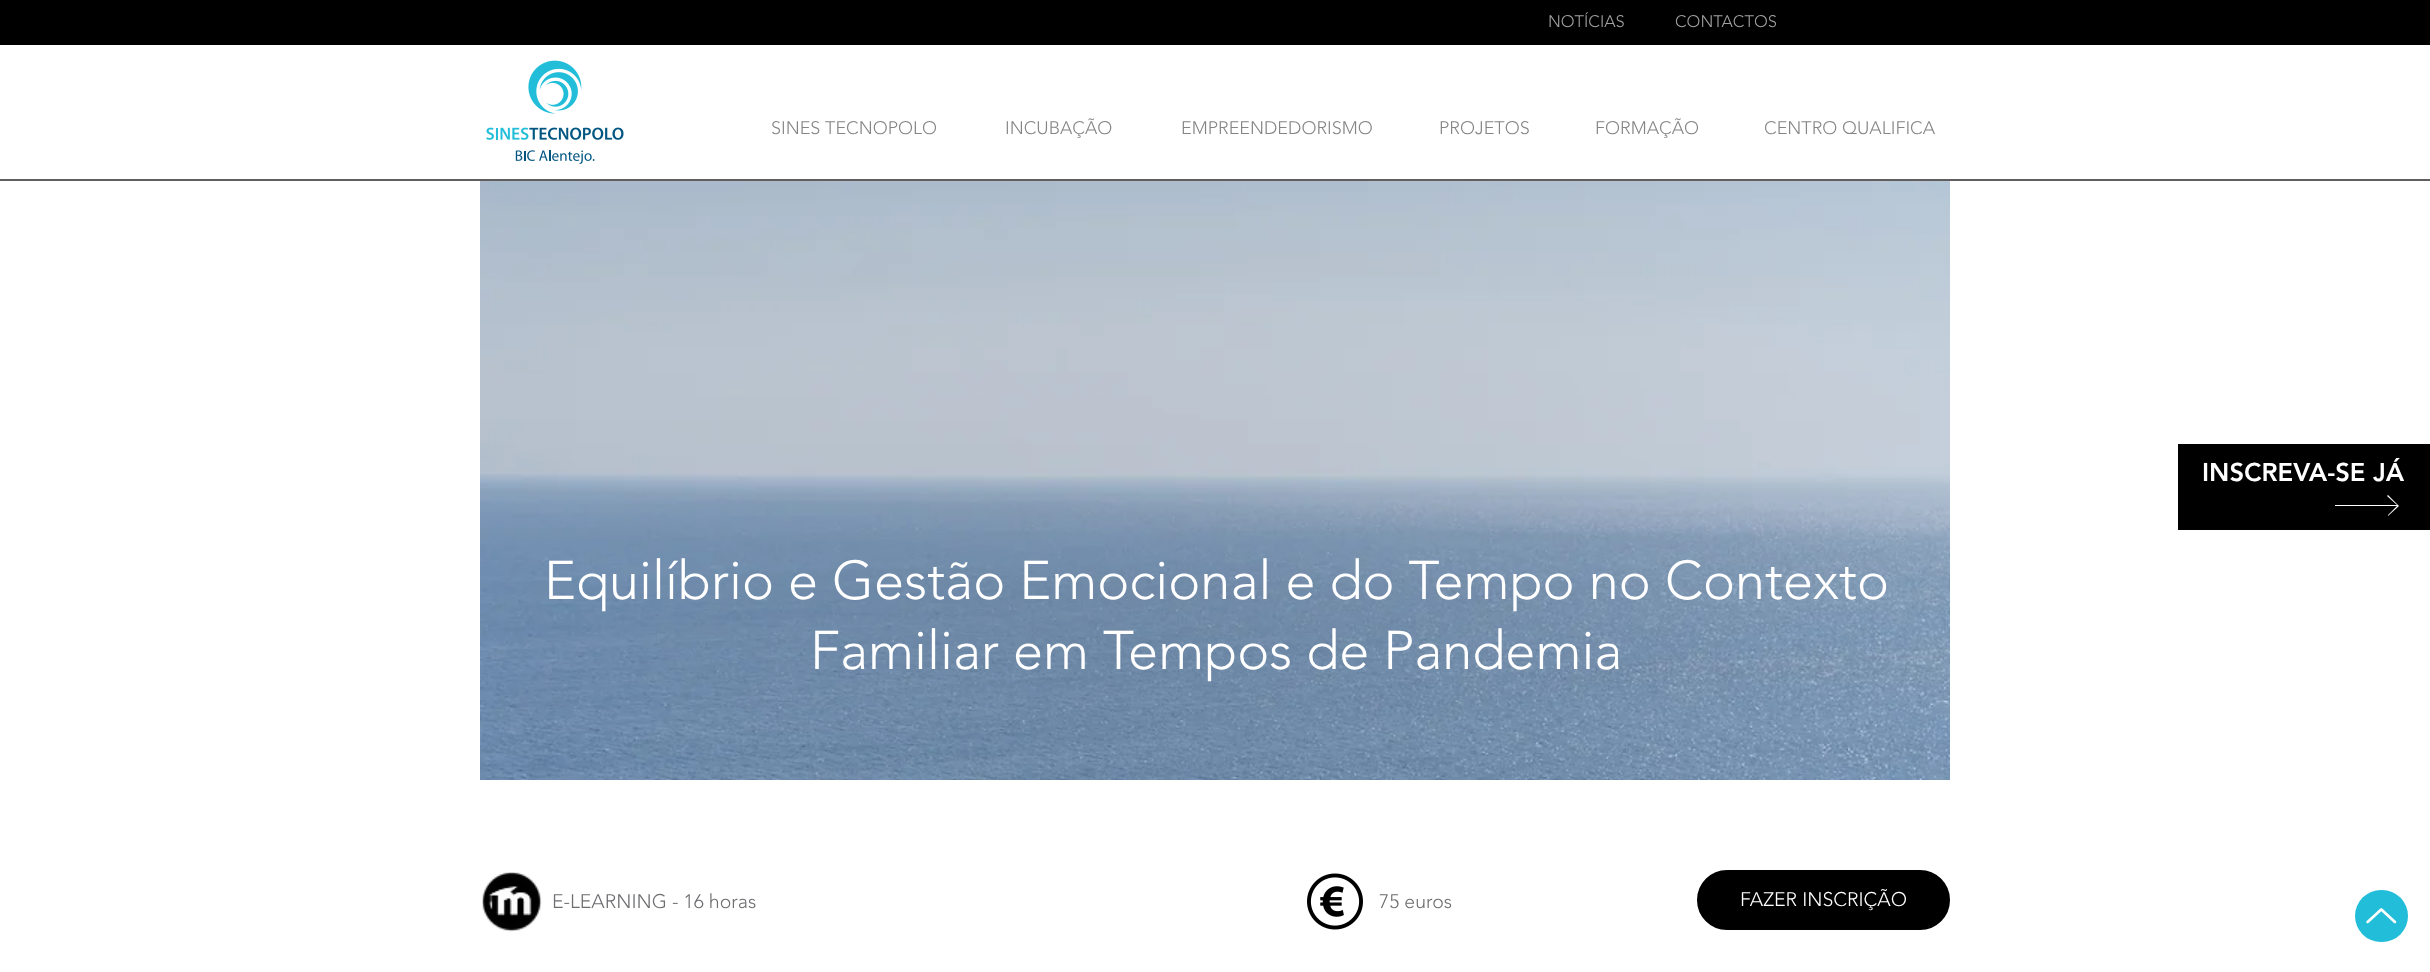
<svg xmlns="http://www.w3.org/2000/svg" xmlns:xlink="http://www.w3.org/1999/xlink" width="2430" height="972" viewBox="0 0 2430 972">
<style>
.cls-1{font:300 16.5px 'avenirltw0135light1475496';fill:#a0a09f}
.cls-2{font:300 18px 'avenirltw0135light1475496';fill:#858585}
.cls-3{font:900 25.5px 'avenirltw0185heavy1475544';fill:#ffffff}
.cls-4{font:300 54px 'avenirltw0135light1475496';fill:#ffffff}
.cls-5{font:300 19.5px 'avenirltw0135light1475496';fill:#6d6e71}
.cls-6{font:300 19.5px 'avenirltw0135light1475496';fill:#ffffff}
</style>
<rect width="100%" height="100%" fill="#ffffff"/>
<rect fill="#000000" x="0" y="0" width="2430" height="45"/>
<image xlink:href="image0.png" x="486" y="60" width="138" height="104"/>
<rect fill="#605e5e" x="0" y="179" width="2430" height="2"/>
<rect fill="#000000" x="2178" y="444" width="252" height="86"/>
<path fill="#ffffff" d="M2388 495L2387 496L2397 505H2335V506H2397L2388 515V516L2399 506Z"/>
<image xlink:href="image1.png" x="480" y="181" width="1470" height="599"/>
<image xlink:href="image2.png" x="482" y="872" width="60" height="60"/>
<image xlink:href="image3.png" x="1307" y="873" width="56" height="57"/>
<rect fill="#000000" stroke="#000000" stroke-width="2" x="1698" y="871" width="251" height="58" rx="29"/>
<rect fill="#22bed9" x="2355" y="890" width="53" height="52" rx="26"/>
<image xlink:href="image4.png" x="2366" y="908" width="31" height="16"/>
<text class="cls-1" x="1548" y="27">NOTÍCIAS</text>
<text class="cls-1" x="1675" y="27">CONTACTOS</text>
<text class="cls-2" x="771" y="134">SINES TECNOPOLO</text>
<text class="cls-2" x="1005" y="134">INCUBAÇÃO</text>
<text class="cls-2" x="1181" y="134">EMPREENDEDORISMO</text>
<text class="cls-2" x="1439" y="134">PROJETOS</text>
<text class="cls-2" x="1595" y="134">FORMAÇÃO</text>
<text class="cls-2" x="1764" y="134">CENTRO QUALIFICA</text>
<text class="cls-3" x="2202" y="481">INSCREVA-SE JÁ</text>
<text class="cls-4" x="544" y="599">Equilíbrio e Gestão Emocional e do Tempo no Contexto</text>
<text class="cls-4" x="810" y="669">Familiar em Tempos de Pandemia</text>
<text class="cls-5" x="552" y="908">E-LEARNING - 16 horas</text>
<text class="cls-5" x="1379" y="908">75 euros</text>
<text class="cls-6" x="1740" y="906">FAZER INSCRIÇÃO</text>
</svg>
